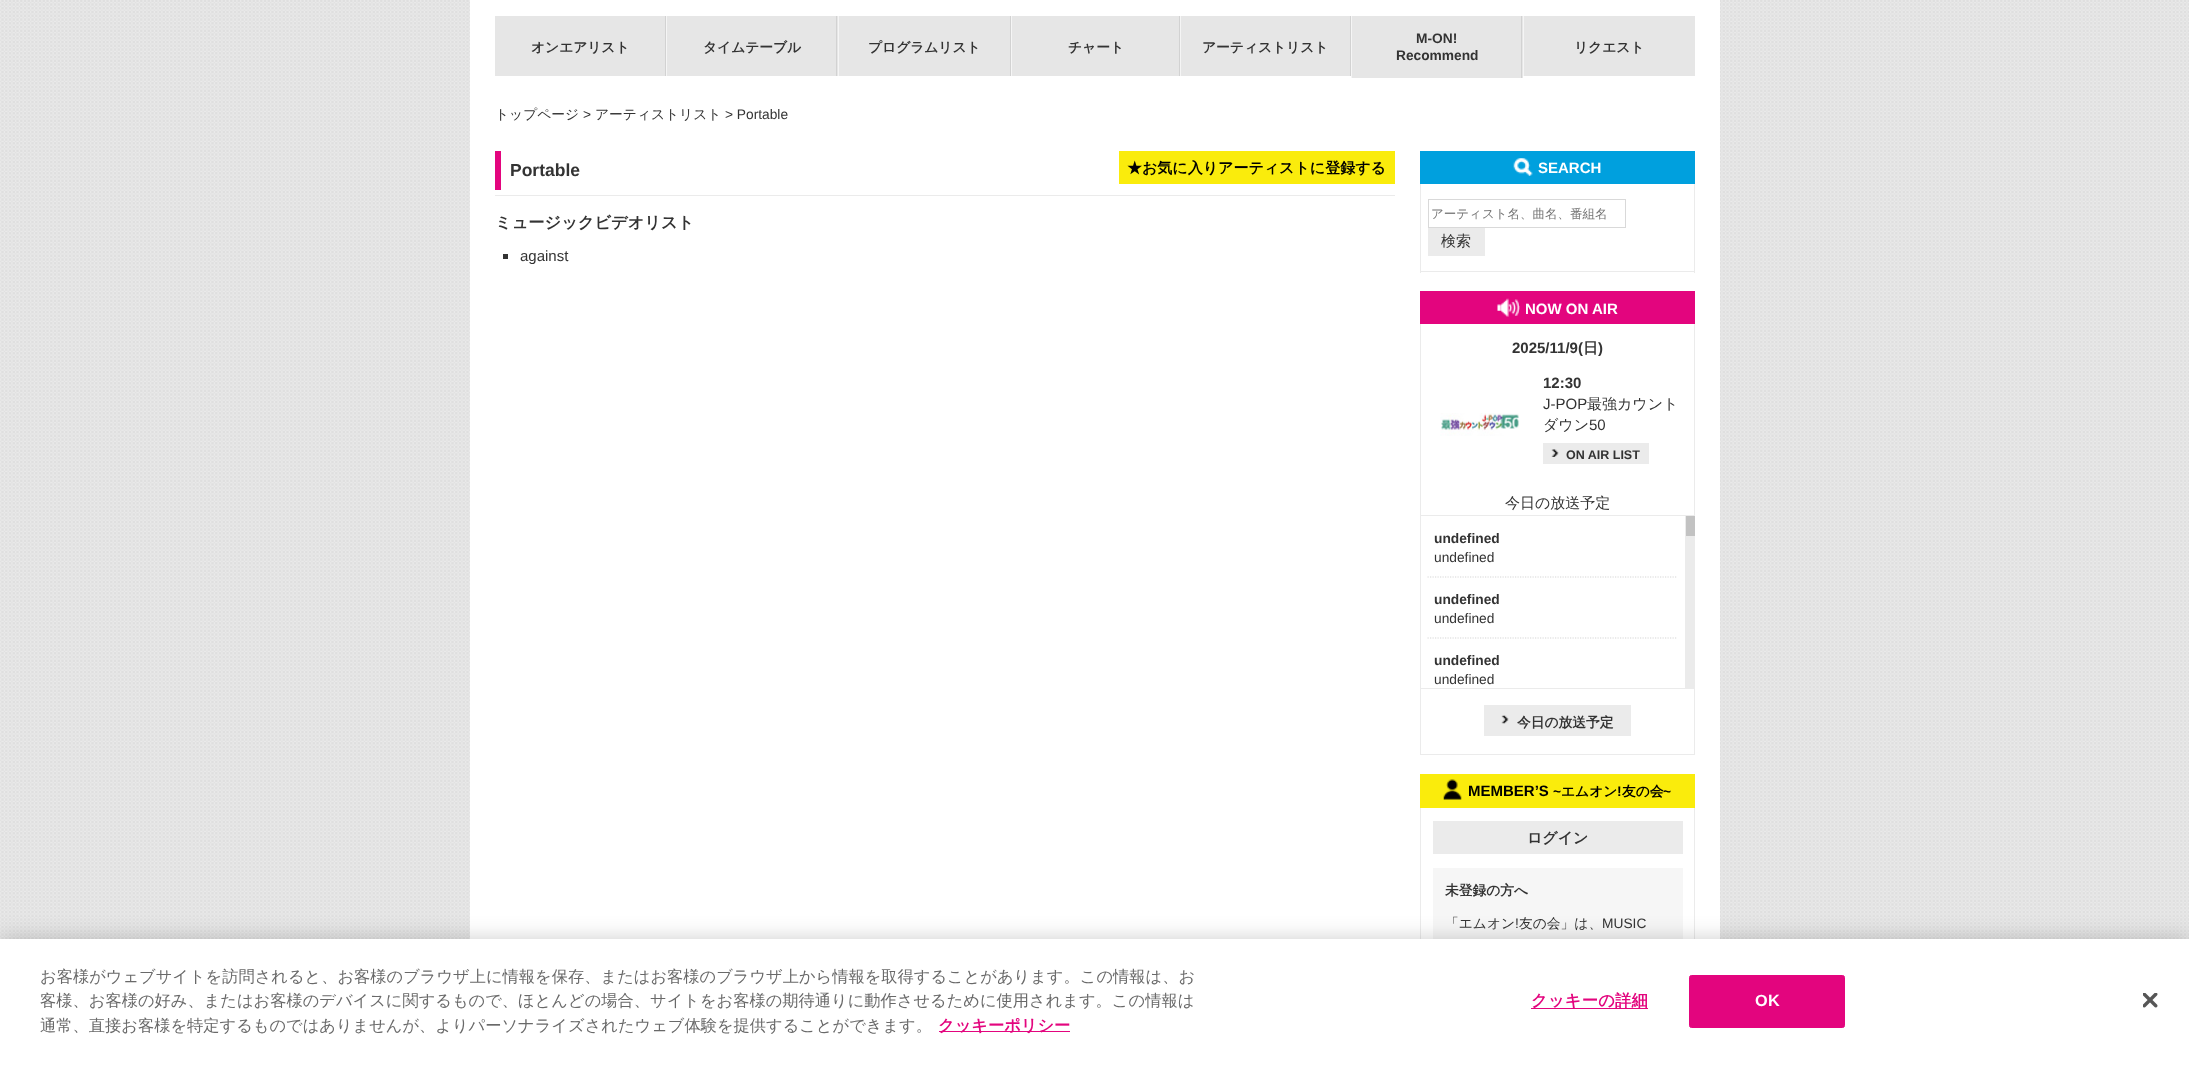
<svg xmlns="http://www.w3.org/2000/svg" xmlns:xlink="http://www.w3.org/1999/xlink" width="2189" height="1066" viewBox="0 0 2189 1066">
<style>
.cls-1{font:bold 13.75px WenQuanYi Zen Hei;fill:#333333}
.cls-2{font:bold 13.75px Liberation Sans;fill:#333333}
.cls-3{font:500 13.75px WenQuanYi Zen Hei;fill:#333333}
.cls-4{font:13.75px Liberation Sans;fill:#333333}
.cls-5{font:bold 17.5px Liberation Sans;fill:#333333}
.cls-6{font:bold 15px WenQuanYi Zen Hei;fill:#000000}
.cls-7{font:bold 16.25px WenQuanYi Zen Hei;fill:#333333}
.cls-8{font:15px Liberation Sans;fill:#333333}
.cls-9{font:bold 15px Liberation Sans;fill:#ffffff}
.cls-10{font:500 12.5px WenQuanYi Zen Hei;fill:#757575}
.cls-11{font:500 15px WenQuanYi Zen Hei;fill:#333333}
.cls-12{font:bold 15px Liberation Sans;fill:#333333}
.cls-13{font:bold 15px WenQuanYi Zen Hei;fill:#333333}
.cls-14{font:bold 12.5px Liberation Sans;fill:#333333}
.cls-15{font:bold 15px Liberation Sans;fill:#000000}
.cls-16{font:bold 13.75px Liberation Sans;fill:#000000}
.cls-17{font:bold 13.75px WenQuanYi Zen Hei;fill:#000000}
.cls-18{font:500 16.25px WenQuanYi Zen Hei;fill:#696969}
.cls-19{font:bold 16.25px WenQuanYi Zen Hei;fill:#e3057e}
.cls-20{font:bold 16.25px WenQuanYi Zen Hei;letter-spacing:0.25px;fill:#e3057e}
.cls-21{font:bold 16.25px Liberation Sans;letter-spacing:0.25px;fill:#ffffff}
</style>
<rect width="100%" height="100%" fill="#ffffff"/>
<image xlink:href="image0.png" x="0" y="0" width="2189" height="939"/>
<rect fill="#ffffff" x="470" y="0" width="1250" height="939"/>
<rect fill="#e6e6e6" x="495" y="16" width="170" height="60"/>
<rect fill="#d2d2d2" x="665" y="16" width="1" height="60"/>
<rect fill="#e6e6e6" x="667" y="16" width="171" height="60"/>
<rect fill="#d2d2d2" x="836" y="16" width="1" height="60"/>
<rect fill="#f5f5f5" x="666" y="16" width="1" height="60"/>
<rect fill="#e6e6e6" x="839" y="16" width="171" height="60"/>
<rect fill="#d2d2d2" x="1010" y="16" width="1" height="60"/>
<rect fill="#f5f5f5" x="838" y="16" width="1" height="60"/>
<rect fill="#e6e6e6" x="1012" y="16" width="167" height="60"/>
<rect fill="#d2d2d2" x="1179" y="16" width="1" height="60"/>
<rect fill="#f5f5f5" x="1011" y="16" width="1" height="60"/>
<rect fill="#e6e6e6" x="1181" y="16" width="169" height="60"/>
<rect fill="#d2d2d2" x="1350" y="16" width="1" height="60"/>
<rect fill="#f5f5f5" x="1180" y="16" width="1" height="60"/>
<rect fill="#e6e6e6" x="1352" y="16" width="171" height="62"/>
<rect fill="#d2d2d2" x="1521" y="16" width="1" height="62"/>
<rect fill="#f5f5f5" x="1351" y="16" width="1" height="62"/>
<rect fill="#e6e6e6" x="1524" y="16" width="171" height="60"/>
<rect fill="#f5f5f5" x="1523" y="16" width="1" height="60"/>
<rect fill="#ebebeb" x="495" y="195" width="900" height="1"/>
<rect fill="#e3057e" x="495" y="151" width="6" height="39"/>
<rect fill="#faec0c" x="1119" y="151" width="276" height="33"/>
<rect fill="#333333" x="503" y="254" width="5" height="5"/>
<rect fill="#00a0de" x="1420" y="151" width="275" height="33"/>
<image xlink:href="image1.png" x="1513" y="158" width="20" height="18"/>
<rect fill="#ebebeb" x="1694" y="184" width="1" height="89"/>
<rect fill="#ebebeb" x="1420" y="271" width="275" height="1"/>
<rect fill="#ebebeb" x="1420" y="184" width="1" height="89"/>
<rect fill="none" stroke="#d9d9d9" x="1428.5" y="199.5" width="197" height="28"/>
<rect fill="#ebebeb" x="1428" y="228" width="57" height="28"/>
<rect fill="#e3057e" x="1420" y="291" width="275" height="33"/>
<image xlink:href="image2.png" x="1497" y="298" width="23" height="19"/>
<rect fill="#ebebeb" x="1694" y="324" width="1" height="431"/>
<rect fill="#ebebeb" x="1420" y="754" width="275" height="1"/>
<rect fill="#ebebeb" x="1420" y="324" width="1" height="431"/>
<image xlink:href="image3.png" x="1440" y="413" width="79" height="23"/>
<rect fill="#ebebeb" x="1543" y="443" width="106" height="21"/>
<image xlink:href="image4.png" x="1551" y="449" width="8" height="8"/>
<rect fill="#ebebeb" x="1421" y="515" width="273" height="1"/>
<rect fill="#ebebeb" x="1421" y="688" width="273" height="1"/>
<path fill="none" stroke="#d6d6d6" stroke-width="1.2" stroke-dasharray="1.25 1.25" d="M1427.5 577H1677.5"/>
<path fill="none" stroke="#d6d6d6" stroke-width="1.2" stroke-dasharray="1.25 1.25" d="M1427.5 638H1677.5"/>
<rect fill="#ebebeb" x="1685" y="516" width="9" height="172"/>
<rect fill="#c2c2c2" x="1686" y="516" width="9" height="20"/>
<rect fill="#ebebeb" x="1484" y="705" width="147" height="31"/>
<image xlink:href="image5.png" x="1501" y="715" width="8" height="9"/>
<rect fill="#faec0c" x="1420" y="774" width="275" height="34"/>
<image xlink:href="image6.png" x="1443" y="779" width="19" height="21"/>
<rect fill="#ebebeb" x="1694" y="808" width="1" height="131"/>
<rect fill="#ebebeb" x="1420" y="808" width="1" height="131"/>
<rect fill="#ebebeb" x="1433" y="821" width="250" height="33"/>
<rect fill="#f6f6f6" x="1433" y="868" width="250" height="71"/>
<rect fill="#000000" fill-opacity="0.2" filter="blur(11px)" x="0" y="939" width="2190" height="127"/>
<rect fill="#ffffff" x="0" y="939" width="2189" height="127"/>
<rect fill="#e3057e" x="939" y="1031" width="131" height="1"/>
<rect fill="#e3057e" x="1531" y="1008" width="117" height="1"/>
<rect fill="#e3057e" stroke="#e3057e" x="1689.5" y="975.5" width="155" height="52" rx="2"/>
<image xlink:href="image7.png" x="2143" y="993" width="15" height="15"/>
<text class="cls-1" x="531" y="52">オンエアリスト</text>
<text class="cls-1" x="703" y="52">タイムテーブル</text>
<text class="cls-1" x="868" y="52">プログラムリスト</text>
<text class="cls-1" x="1068" y="52">チャート</text>
<text class="cls-1" x="1202" y="52">アーティストリスト</text>
<text class="cls-2" x="1416" y="43">M-ON!</text>
<text class="cls-2" x="1396" y="60">Recommend</text>
<text class="cls-1" x="1574" y="52">リクエスト</text>
<text class="cls-3" x="495" y="119">トップページ</text>
<text class="cls-4" x="583" y="119">&gt;</text>
<text class="cls-3" x="595" y="119">アーティストリスト</text>
<text class="cls-4" x="725" y="119">&gt; Portable</text>
<text class="cls-5" x="510" y="176">Portable</text>
<text class="cls-6" x="1127" y="173">★お気に入りアーティストに登録する</text>
<text class="cls-7" x="495" y="228">ミュージックビデオリスト</text>
<text class="cls-8" x="520" y="261">against</text>
<text class="cls-9" x="1538" y="173">SEARCH</text>
<text class="cls-10" x="1431" y="218">アーティスト名、曲名、番組名</text>
<text class="cls-11" x="1441" y="246">検索</text>
<text class="cls-9" x="1525" y="314">NOW ON AIR</text>
<text class="cls-12" x="1512" y="353">2025/11/9(</text>
<text class="cls-13" x="1583" y="353">日</text>
<text class="cls-12" x="1598" y="353">)</text>
<text class="cls-12" x="1543" y="388">12:30</text>
<text class="cls-8" x="1543" y="409">J-POP</text>
<text class="cls-11" x="1587" y="409">最強カウント</text>
<text class="cls-11" x="1543" y="430">ダウン</text>
<text class="cls-8" x="1589" y="430">50</text>
<text class="cls-14" x="1566" y="459">ON AIR LIST</text>
<text class="cls-11" x="1505" y="508">今日の放送予定</text>
<text class="cls-2" x="1434" y="543">undefined</text>
<text class="cls-4" x="1434" y="562">undefined</text>
<text class="cls-2" x="1434" y="604">undefined</text>
<text class="cls-4" x="1434" y="623">undefined</text>
<text class="cls-2" x="1434" y="665">undefined</text>
<text class="cls-4" x="1434" y="684">undefined</text>
<text class="cls-1" x="1517" y="727">今日の放送予定</text>
<text class="cls-15" x="1468" y="796">MEMBER’S</text>
<text class="cls-16" x="1553" y="796">~</text>
<text class="cls-17" x="1561" y="796">エムオン</text>
<text class="cls-16" x="1617" y="796">!</text>
<text class="cls-17" x="1622" y="796">友の会</text>
<text class="cls-16" x="1663" y="796">~</text>
<text class="cls-13" x="1527" y="843">ログイン</text>
<text class="cls-1" x="1445" y="895">未登録の方へ</text>
<text class="cls-3" x="1445" y="928">「エムオン</text>
<text class="cls-4" x="1515" y="928">!</text>
<text class="cls-3" x="1519" y="928">友の会」は、</text>
<text class="cls-4" x="1602" y="928">MUSIC</text>
<text class="cls-18"><tspan x="40" y="982">お客様がウェブサイトを訪問されると、お客様のブラウザ上に情報を保存、またはお客様のブラウザ上から情報を取得することがあります。この情報は、お</tspan><tspan x="40" y="1006">客様、お客様の好み、またはお客様のデバイスに関するもので、ほとんどの場合、サイトをお客様の期待通りに動作させるために使用されます。この情報は</tspan><tspan x="40" y="1031">通常、直接お客様を特定するものではありませんが、よりパーソナライズされたウェブ体験を提供することができます。</tspan></text>
<text class="cls-19" x="938" y="1031">クッキーポリシー</text>
<text class="cls-20" x="1531" y="1006">クッキーの詳細</text>
<text class="cls-21" x="1755" y="1006">OK</text>
</svg>
